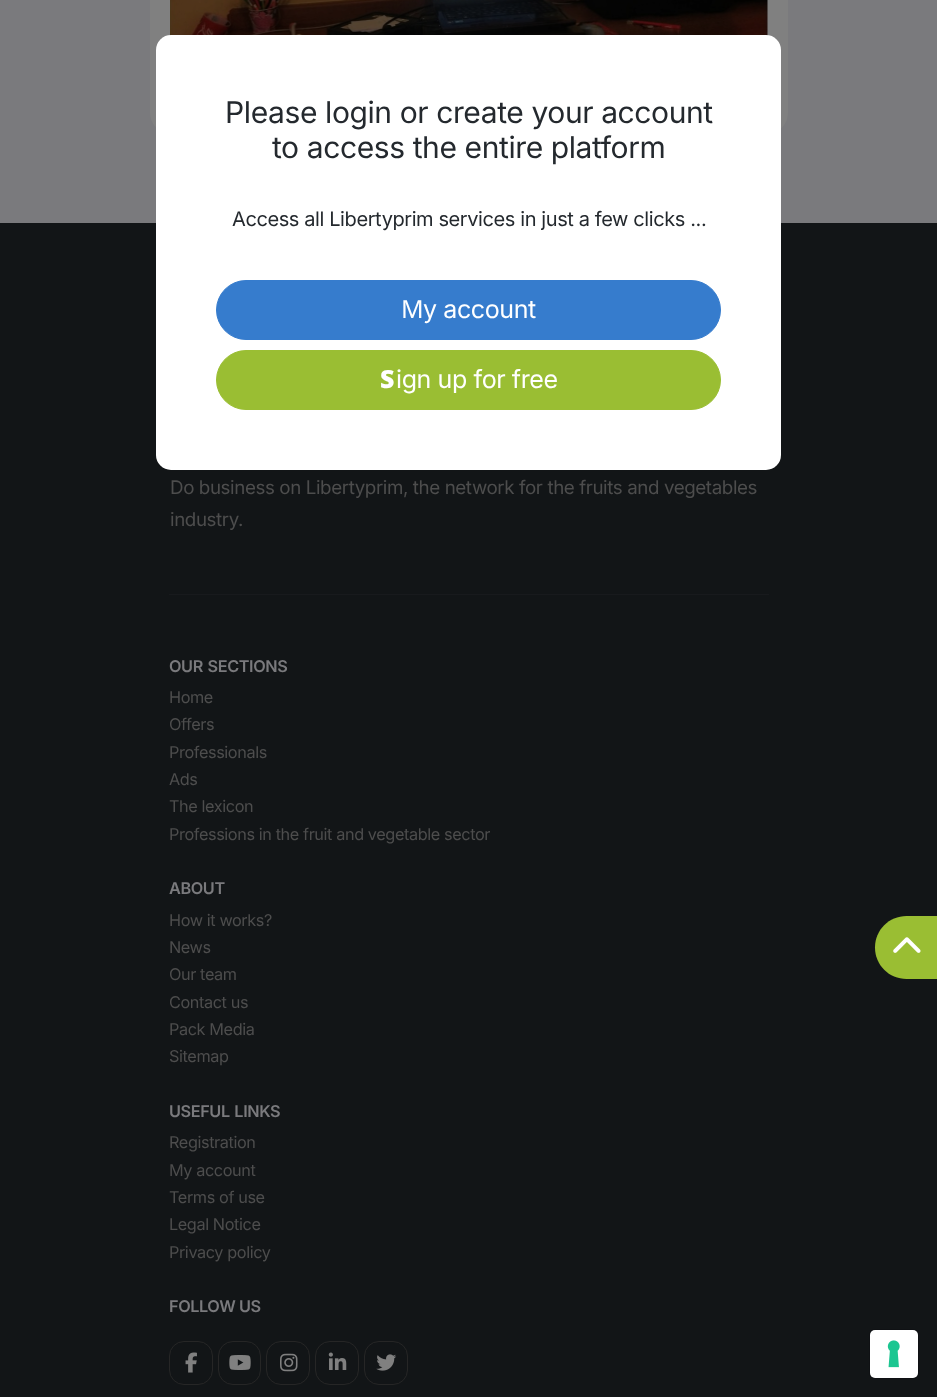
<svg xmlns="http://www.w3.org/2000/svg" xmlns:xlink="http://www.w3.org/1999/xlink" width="937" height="1397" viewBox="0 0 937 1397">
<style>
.cls-1{font:30px Inter;letter-spacing:-0.4px;fill:#24292e}
.cls-2{font:20px Inter;letter-spacing:-0.4px;fill:#24292e}
.cls-3{font:25px Noto Sans;letter-spacing:-0.4px;fill:#ffffff}
.cls-4{font:25px Inter;letter-spacing:-0.4px;fill:#ffffff}
.cls-5{font:900 25px Noto Sans;letter-spacing:-0.4px;fill:#ffffff}
.cls-6{font:18.75px Inter;letter-spacing:-0.4px;fill:#4d4d4d}
.cls-7{font:600 16.25px Inter;letter-spacing:-0.4px;fill:#7a7a7d}
.cls-8{font:16.25px Inter;letter-spacing:-0.4px;fill:#4d4d4d}
</style>
<rect width="100%" height="100%" fill="#7a7a7d"/>
<path fill="#808080" d="M150-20H768C779-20 788-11 788 0V113C788 124 779 133 768 133H170C159 133 150 124 150 113Z"/>
<image xlink:href="image0.png" x="170" y="0" width="598" height="36"/>
<rect fill="#121517" x="0" y="223" width="937" height="1174"/>
<rect fill="#ffffff" x="156" y="35" width="625" height="435" rx="15"/>
<rect fill="#367ccd" stroke="#367ccd" x="216.5" y="280.5" width="504" height="59" rx="29.5"/>
<rect fill="#9abe33" stroke="#9abe33" x="216.5" y="350.5" width="504" height="59" rx="29.5"/>
<rect fill="#181a1d" x="169" y="594" width="600" height="1"/>
<rect fill="none" stroke="#262626" x="169.5" y="1341.5" width="43" height="43" rx="14.5"/>
<image xlink:href="image1.png" x="185" y="1352" width="12" height="21"/>
<rect fill="none" stroke="#262626" x="218.5" y="1341.5" width="42" height="43" rx="14.5"/>
<image xlink:href="image2.png" x="229" y="1355" width="22" height="15"/>
<rect fill="none" stroke="#262626" x="266.5" y="1341.5" width="43" height="43" rx="14.5"/>
<image xlink:href="image3.png" x="280" y="1353" width="18" height="19"/>
<rect fill="none" stroke="#262626" x="315.5" y="1341.5" width="43" height="43" rx="14.5"/>
<image xlink:href="image4.png" x="328" y="1352" width="19" height="18"/>
<rect fill="none" stroke="#262626" x="364.5" y="1341.5" width="43" height="43" rx="14.5"/>
<image xlink:href="image5.png" x="376" y="1354" width="21" height="17"/>
<path fill="#9abe33" d="M906.5 916H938V979H906.5C889 979 875 965 875 947.5C875 930 889 916 906.5 916Z"/>
<image xlink:href="image6.png" x="893" y="937" width="28" height="16"/>
<rect fill="none" stroke="#0f1114" x="869.5" y="1329.5" width="49" height="49" rx="5.5"/>
<rect fill="#ffffff" x="870" y="1330" width="48" height="48" rx="5"/>
<image xlink:href="image7.png" x="887" y="1340" width="13" height="28"/>
<text class="cls-1" x="225" y="123">Please login or create your account</text>
<text class="cls-1" x="272" y="158">to access the entire platform</text>
<text class="cls-2" x="232" y="226">Access all Libertyprim services in just a few clicks ...</text>
<text class="cls-3" x="401" y="318">M</text>
<text class="cls-4" x="423" y="318">y account</text>
<text class="cls-5" x="380" y="388">S</text>
<text class="cls-4" x="396" y="388">ign up for free</text>
<text class="cls-6"><tspan x="170" y="494">Do business on Libertyprim, the network for the fruits and vegetables</tspan><tspan x="170" y="526">industry.</tspan></text>
<text class="cls-7" x="169" y="672" word-spacing="1">OUR SECTIONS</text>
<text class="cls-8"><tspan x="169" y="703">Home</tspan><tspan x="169" y="730">Offers</tspan><tspan x="169" y="758">Professionals</tspan><tspan x="169" y="785">Ads</tspan><tspan x="169" y="812">The lexicon</tspan><tspan x="169" y="840">Professions in the fruit and vegetable sector</tspan></text>
<text class="cls-7" x="169" y="894">ABOUT</text>
<text class="cls-8"><tspan x="169" y="926">How it works?</tspan><tspan x="169" y="953">News</tspan><tspan x="169" y="980">Our team</tspan><tspan x="169" y="1008">Contact us</tspan><tspan x="169" y="1035">Pack Media</tspan><tspan x="169" y="1062">Sitemap</tspan></text>
<text class="cls-7" x="169" y="1117" word-spacing="1">USEFUL LINKS</text>
<text class="cls-8"><tspan x="169" y="1148">Registration</tspan><tspan x="169" y="1176">My account</tspan><tspan x="169" y="1203">Terms of use</tspan><tspan x="169" y="1230">Legal Notice</tspan><tspan x="169" y="1258">Privacy policy</tspan></text>
<text class="cls-7" x="169" y="1312">FOLLOW US</text>
</svg>
